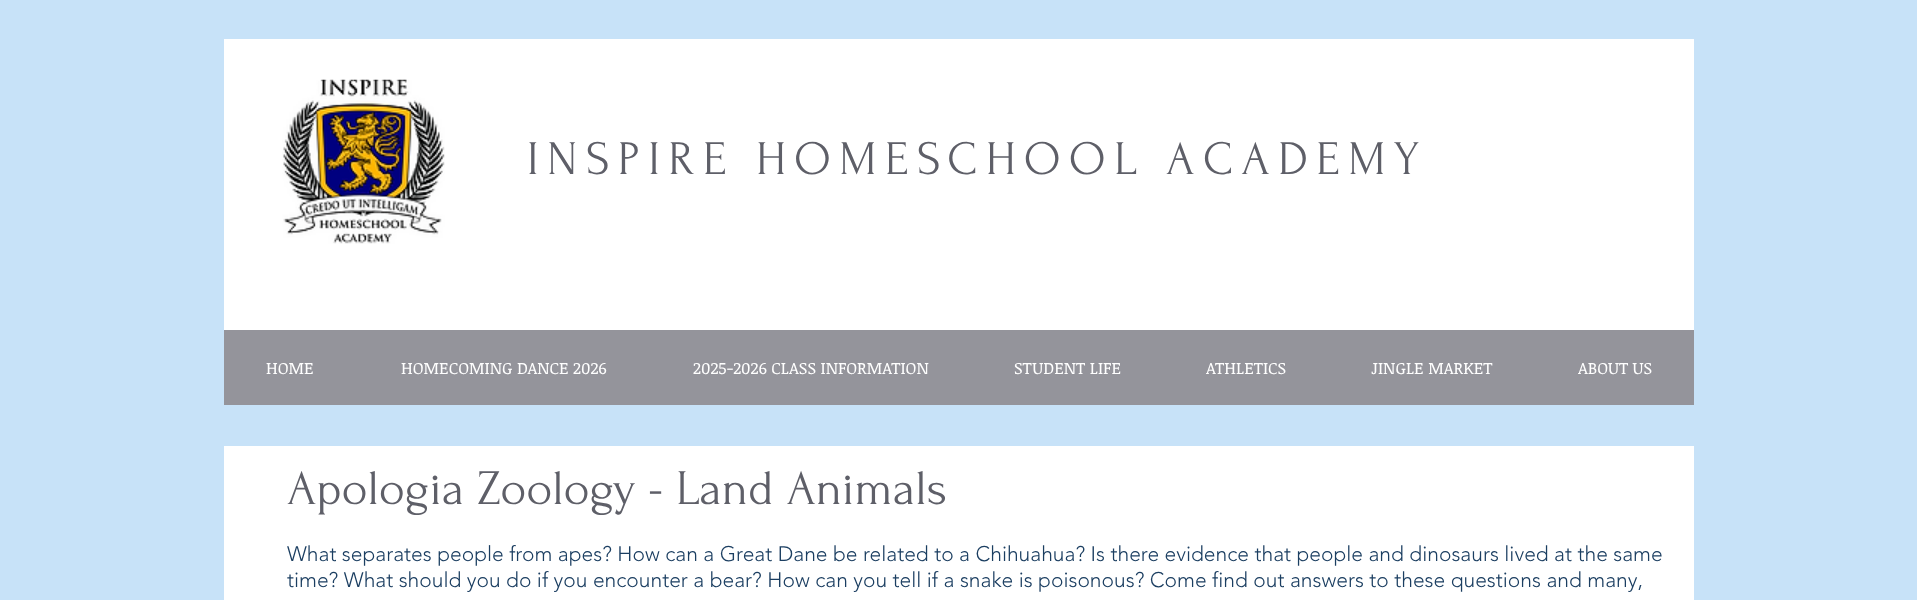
<svg xmlns="http://www.w3.org/2000/svg" xmlns:xlink="http://www.w3.org/1999/xlink" width="1917" height="600" viewBox="0 0 1917 600">
<style>
.cls-1{font:48px Forum;letter-spacing:8.55px;fill:#5e5f68}
.cls-2{font:16.5px Noticia Text;fill:#ffffff}
.cls-3{font:49.5px Forum;fill:#5e5f68}
.cls-4{font:300 21px 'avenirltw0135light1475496';fill:#1b3e61}
</style>
<rect width="100%" height="100%" fill="#c7e2f8"/>
<rect fill="#ffffff" x="224" y="39" width="1470" height="291"/>
<image xlink:href="image0.png" x="282" y="79" width="163" height="165"/>
<rect fill="#94949b" x="224" y="330" width="1470" height="75"/>
<rect fill="#ffffff" x="224" y="446" width="1470" height="154"/>
<text class="cls-1" x="527" y="174">INSPIRE HOMESCHOOL ACADEMY</text>
<text class="cls-2" x="266" y="374">HOME</text>
<text class="cls-2" x="401" y="374">HOMECOMING DANCE 2026</text>
<text class="cls-2" x="693" y="374">2025-2026 CLASS INFORMATION</text>
<text class="cls-2" x="1014" y="374">STUDENT LIFE</text>
<text class="cls-2" x="1206" y="374">ATHLETICS</text>
<text class="cls-2" x="1371" y="374">JINGLE MARKET</text>
<text class="cls-2" x="1578" y="374">ABOUT US</text>
<text class="cls-3" x="287" y="504">Apologia Zoology - Land Animals</text>
<text class="cls-4"><tspan x="287" y="561">What separates people from apes? How can a Great Dane be related to a Chihuahua? Is there evidence that people and dinosaurs lived at the same</tspan><tspan x="287" y="587">time? What should you do if you encounter a bear? How can you tell if a snake is poisonous? Come find out answers to these questions and many,</tspan></text>
</svg>
